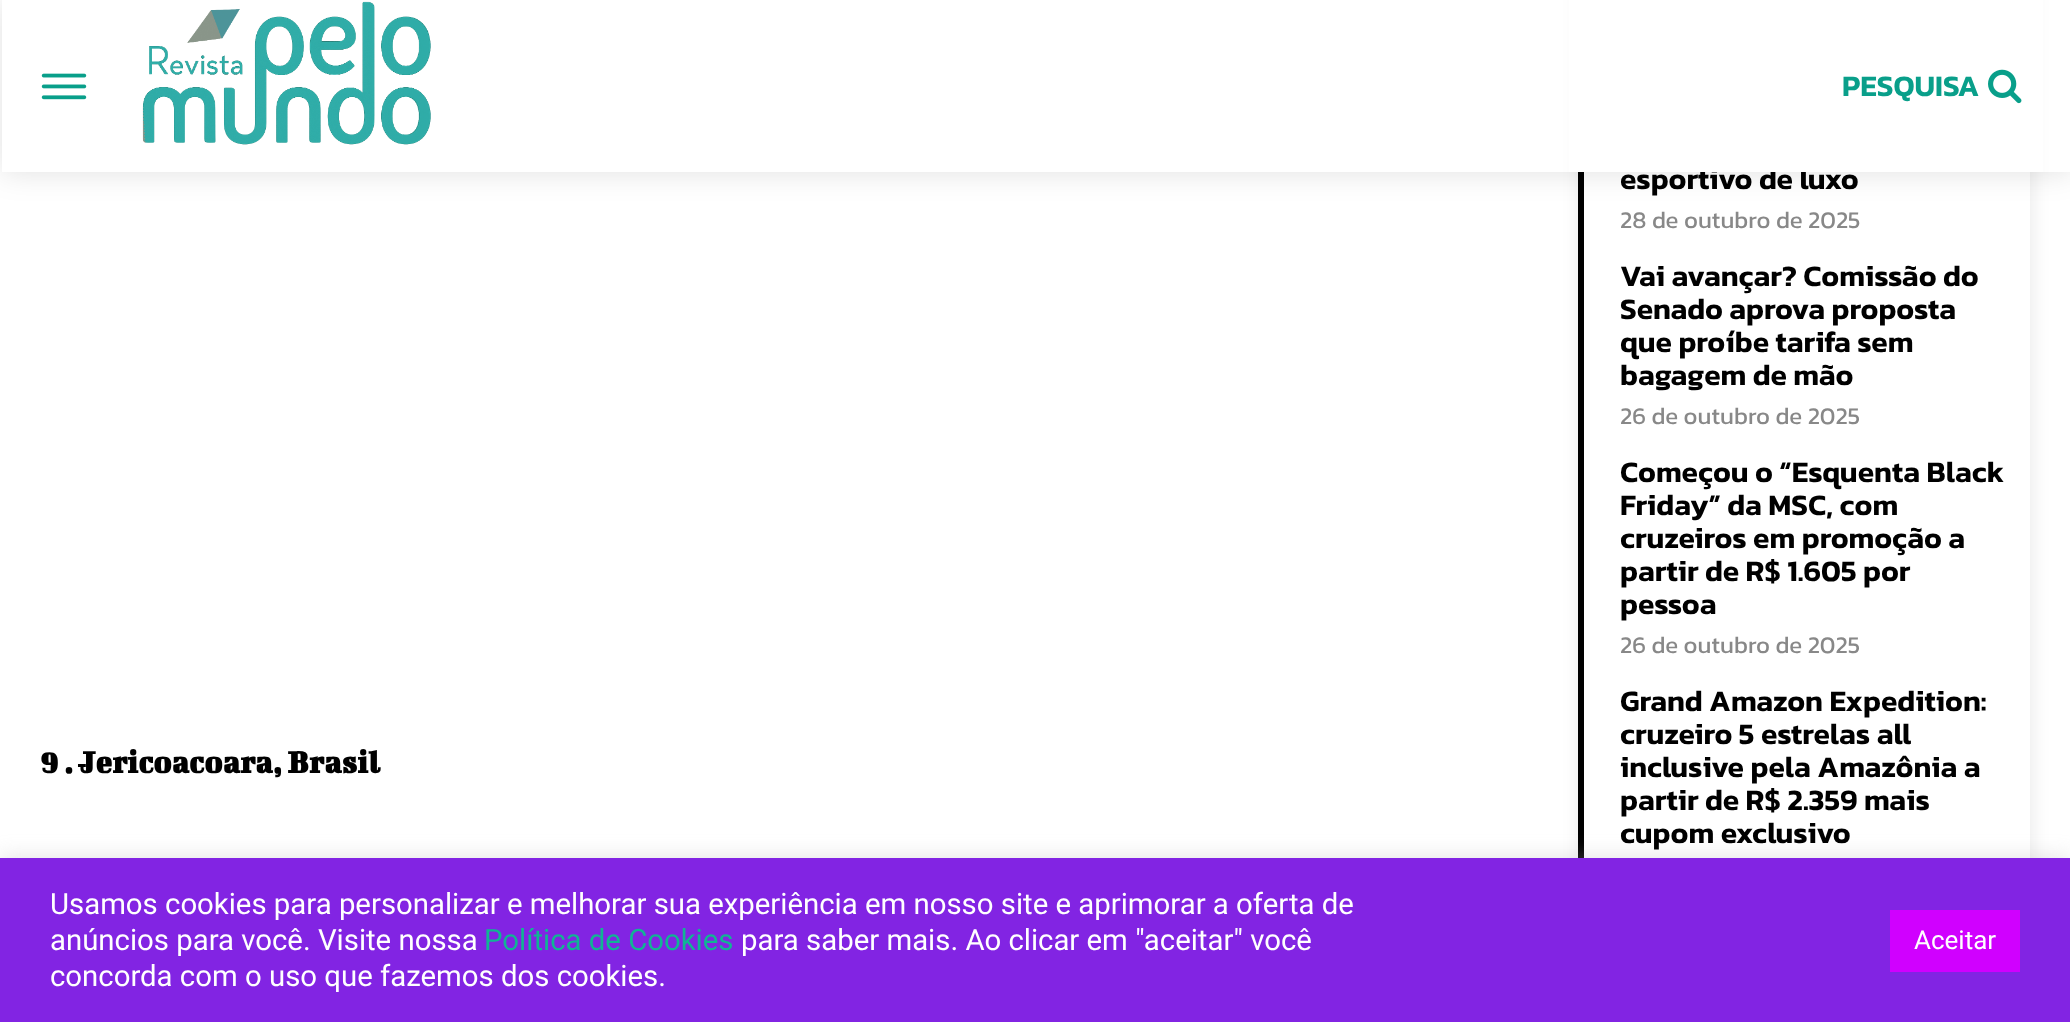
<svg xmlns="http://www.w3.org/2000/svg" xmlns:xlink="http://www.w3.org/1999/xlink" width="2070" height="1022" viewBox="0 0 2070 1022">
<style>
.cls-1{font:bold 34px Bigshot One;fill:#000000}
.cls-2{font:600 30px Kanit;fill:#000000}
.cls-3{font:600 30px Kanit;fill:#099f8a}
.cls-4{font:24px Kanit;fill:#888888}
.cls-5{font:29.35px Roboto;fill:#ffffff}
.cls-6{font:29.35px Roboto;fill:#11b494}
.cls-7{font:26px Roboto;fill:#ffffff}
</style>
<defs>
<clipPath id="clip1"><path d="M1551 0H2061V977H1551ZM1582-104H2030V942H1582Z" clip-rule="evenodd"/></clipPath>
<clipPath id="clip2"><path d="M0 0H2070V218H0ZM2 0H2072V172H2Z" clip-rule="evenodd"/></clipPath>
</defs>
<rect width="100%" height="100%" fill="#ffffff"/>
<image xlink:href="image0.png" x="41" y="73" width="46" height="27"/>
<image xlink:href="image1.png" x="142" y="1" width="289" height="144"/>
<rect fill="#000000" x="1578" y="172" width="6" height="686"/>
<g clip-path="url(#clip1)">
<rect fill="#000000" fill-opacity="0.1" filter="blur(10px)" x="1582" y="-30" width="448" height="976"/>
</g>
<rect fill="#acabab" fill-opacity="0.3" filter="blur(10px)" x="0" y="856" width="2070" height="164"/>
<rect fill="#8224e3" x="0" y="858" width="2070" height="164"/>
<rect fill="#d000ff" x="1890" y="910" width="130" height="62"/>
<text class="cls-1" x="40" y="773">9 . Jericoacoara, Brasil</text>
<text class="cls-2" x="1620" y="189">esportivo de luxo</text>
<rect fill="#ffffff" x="1569" y="0" width="474" height="172"/>
<g clip-path="url(#clip2)">
<rect fill="#000000" fill-opacity="0.12" filter="blur(15px)" x="2" y="0" width="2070" height="172"/>
</g>
<text class="cls-3" x="1842" y="96">PESQUISA</text>
<image xlink:href="image2.png" x="1988" y="69" width="34" height="35"/>
<text class="cls-4" x="1620" y="228">28 de outubro de 2025</text>
<text class="cls-2"><tspan x="1620" y="286">Vai avançar? Comissão do</tspan><tspan x="1620" y="319">Senado aprova proposta</tspan><tspan x="1620" y="352">que proíbe tarifa sem</tspan><tspan x="1620" y="385">bagagem de mão</tspan></text>
<text class="cls-4" x="1620" y="424">26 de outubro de 2025</text>
<text class="cls-2"><tspan x="1620" y="482">Começou o “Esquenta Black</tspan><tspan x="1620" y="515">Friday” da MSC, com</tspan><tspan x="1620" y="548">cruzeiros em promoção a</tspan><tspan x="1620" y="581">partir de R$ 1.605 por</tspan><tspan x="1620" y="614">pessoa</tspan></text>
<text class="cls-4" x="1620" y="653">26 de outubro de 2025</text>
<text class="cls-2"><tspan x="1620" y="711">Grand Amazon Expedition:</tspan><tspan x="1620" y="744">cruzeiro 5 estrelas all</tspan><tspan x="1620" y="777">inclusive pela Amazônia a</tspan><tspan x="1620" y="810">partir de R$ 2.359 mais</tspan><tspan x="1620" y="843">cupom exclusivo</tspan></text>
<text class="cls-5"><tspan x="50" y="914">Usamos cookies para personalizar e melhorar sua experiência em nosso site e aprimorar a oferta de</tspan><tspan x="50" y="950">anúncios para você. Visite nossa</tspan></text>
<text class="cls-6" x="484" y="950">Política de Cookies</text>
<text class="cls-5" x="741" y="950">para saber mais. Ao clicar em "aceitar" você</text>
<text class="cls-5" x="50" y="986">concorda com o uso que fazemos dos cookies.</text>
<text class="cls-7" x="1914" y="949">Aceitar</text>
</svg>
